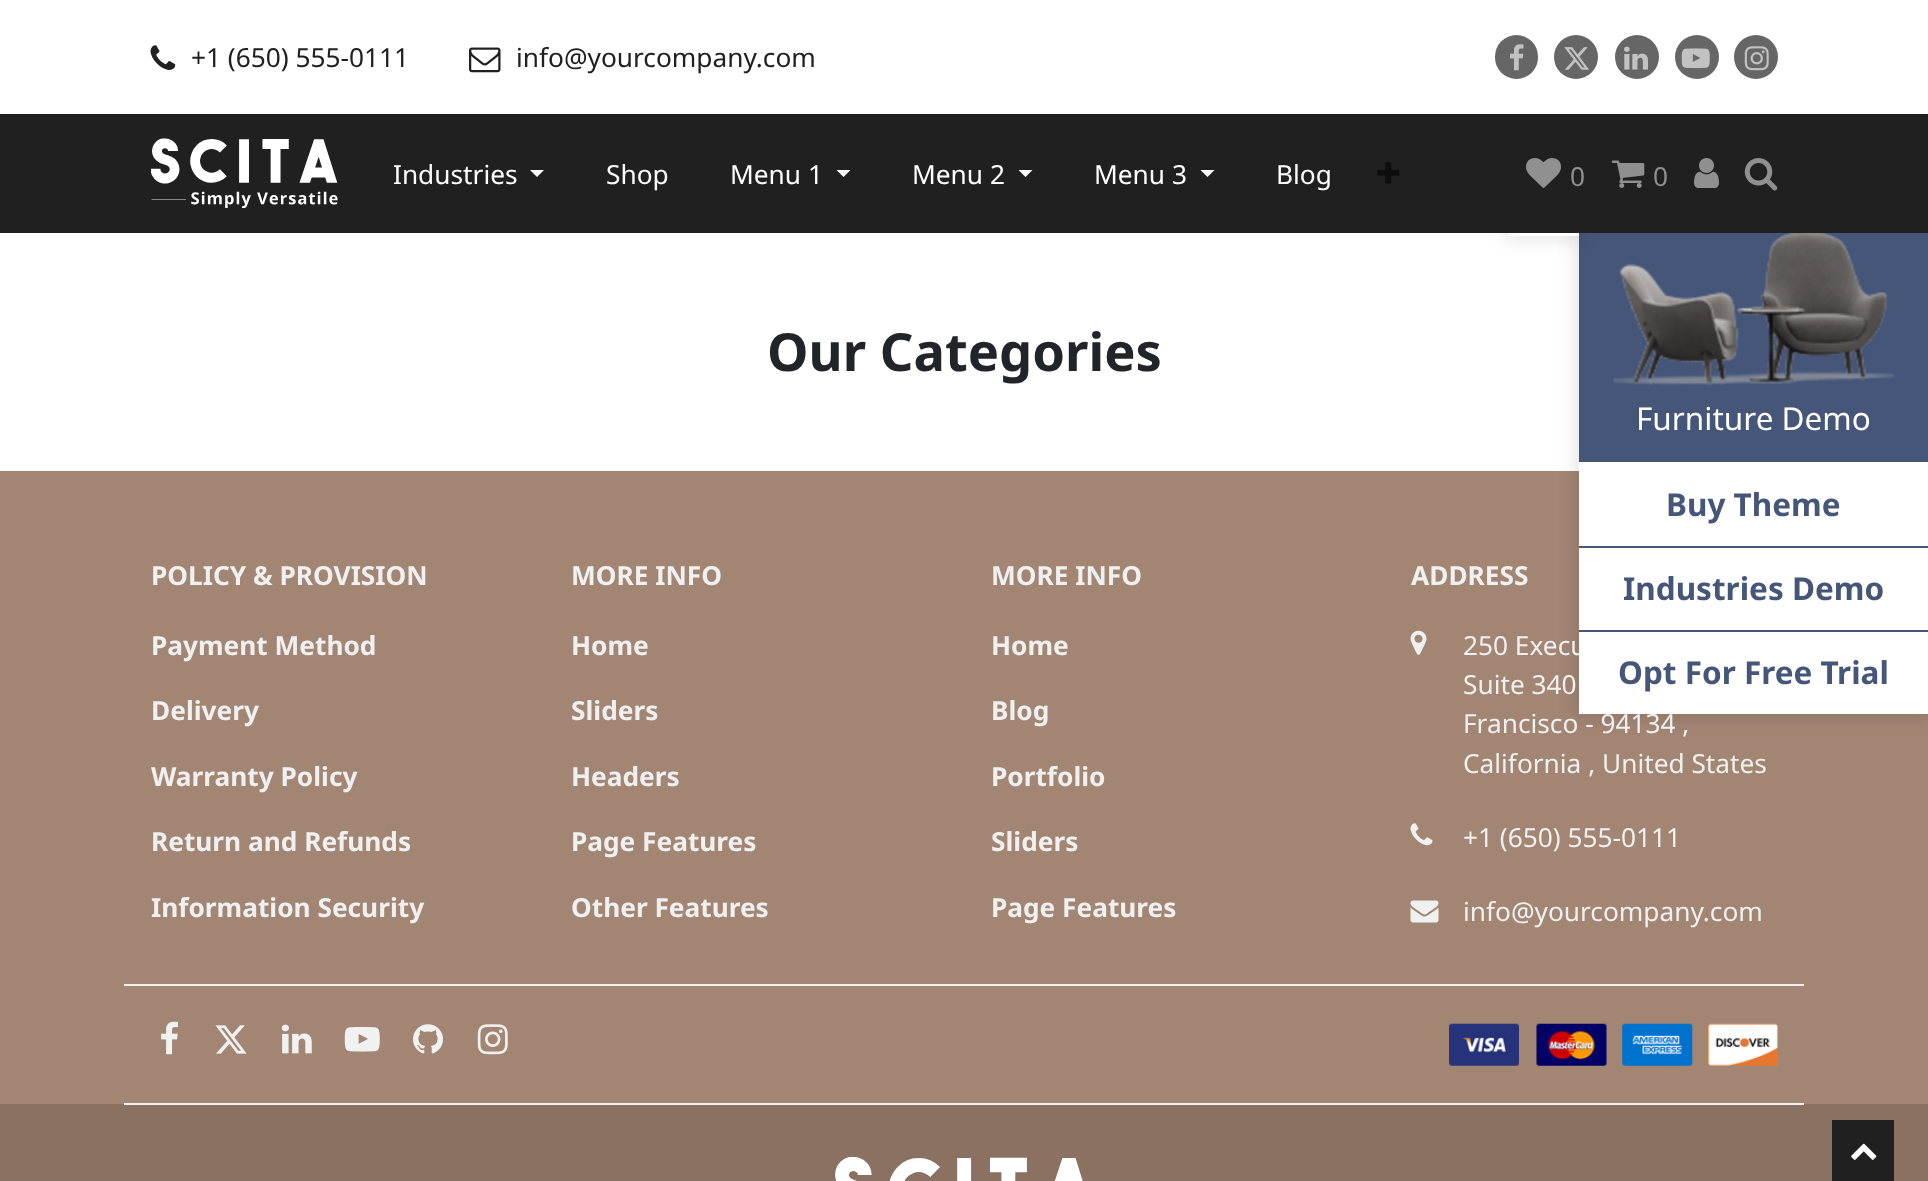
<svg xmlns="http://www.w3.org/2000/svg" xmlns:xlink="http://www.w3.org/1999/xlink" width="1928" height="1181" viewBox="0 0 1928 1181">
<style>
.cls-1{font:26.25px Noto Sans;fill:#202020}
.cls-2{font:26.25px Noto Sans;fill:#ffffff}
.cls-3{font:26.25px Noto Sans;fill:#909090}
.cls-4{font:bold 52.5px Noto Sans;fill:#212529}
.cls-5{font:31.5px Noto Sans;fill:#ffffff}
.cls-6{font:bold 31.5px Noto Sans;fill:#455679}
.cls-7{font:bold 26.25px Noto Sans;fill:#f0f0f0}
.cls-8{font:26.25px Noto Sans;fill:#f0f0f0}
</style>
<rect width="100%" height="100%" fill="#ffffff"/>
<image xlink:href="image0.png" x="150" y="45" width="26" height="25"/>
<image xlink:href="image1.png" x="469" y="47" width="32" height="26"/>
<rect fill="#666666" x="1495" y="35" width="43" height="44" rx="21.5"/>
<image xlink:href="image2.png" x="1510" y="44" width="14" height="27"/>
<circle fill="#666666" cx="1576" cy="57" r="22"/>
<image xlink:href="image3.png" x="1564" y="47" width="25" height="23"/>
<circle fill="#666666" cx="1637" cy="57" r="22"/>
<image xlink:href="image4.png" x="1624" y="46" width="24" height="24"/>
<circle fill="#666666" cx="1697" cy="57" r="22"/>
<image xlink:href="image5.png" x="1681" y="48" width="29" height="21"/>
<circle fill="#666666" cx="1756" cy="57" r="22"/>
<image xlink:href="image6.png" x="1744" y="46" width="25" height="25"/>
<rect fill="#a28573" x="0" y="471" width="1928" height="633"/>
<rect fill="#000000" fill-opacity="0.1" filter="blur(9px)" x="1575" y="198" width="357" height="520"/>
<rect fill="#455679" x="1579" y="233" width="349" height="229"/>
<rect fill="#000000" fill-opacity="0.1" filter="blur(9px)" x="1505" y="163" width="77" height="77"/>
<rect fill="#202020" x="0" y="114" width="1928" height="119"/>
<image xlink:href="image7.png" x="151" y="138" width="187" height="70"/>
<path fill="#ffffff" d="M530 170H544L537 177Z"/>
<path fill="#ffffff" d="M836.5 170H850.5L843.5 177Z"/>
<path fill="#ffffff" d="M1018.5 170H1032.5L1025.5 177Z"/>
<path fill="#ffffff" d="M1200.5 170H1214.5L1207.5 177Z"/>
<image xlink:href="image8.png" x="1377" y="161" width="23" height="23"/>
<image xlink:href="image9.png" x="1526" y="158" width="35" height="30"/>
<image xlink:href="image10.png" x="1611" y="160" width="34" height="28"/>
<image xlink:href="image11.png" x="1694" y="158" width="25" height="30"/>
<image xlink:href="image12.png" x="1744" y="158" width="34" height="33"/>
<rect fill="#ffffff" x="1509" y="233" width="70" height="3"/>
<image xlink:href="image13.png" x="1613" y="233" width="281" height="153"/>
<rect fill="#ffffff" x="1579" y="462" width="349" height="84"/>
<rect fill="#455679" x="1579" y="546" width="349" height="2"/>
<rect fill="#ffffff" x="1579" y="548" width="349" height="82"/>
<rect fill="#455679" x="1579" y="630" width="349" height="2"/>
<image xlink:href="image14.png" x="1410" y="630" width="17" height="25"/>
<image xlink:href="image15.png" x="1410" y="823" width="23" height="23"/>
<image xlink:href="image16.png" x="1410" y="900" width="29" height="23"/>
<rect fill="#f0f0f0" x="124" y="984" width="1680" height="2"/>
<image xlink:href="image17.png" x="161" y="1021" width="17" height="34"/>
<image xlink:href="image18.png" x="215" y="1025" width="32" height="29"/>
<image xlink:href="image19.png" x="281" y="1024" width="31" height="30"/>
<image xlink:href="image20.png" x="344" y="1026" width="36" height="26"/>
<image xlink:href="image21.png" x="413" y="1024" width="30" height="30"/>
<image xlink:href="image22.png" x="477" y="1024" width="31" height="31"/>
<image xlink:href="image23.png" x="1449" y="1023" width="70" height="43"/>
<image xlink:href="image24.png" x="1536" y="1023" width="71" height="43"/>
<image xlink:href="image25.png" x="1622" y="1023" width="71" height="43"/>
<image xlink:href="image26.png" x="1708" y="1023" width="70" height="43"/>
<rect fill="#8a7162" x="0" y="1104" width="1928" height="77"/>
<rect fill="#f0f0f0" x="124" y="1103" width="1680" height="2"/>
<image xlink:href="image27.png" x="835" y="1157" width="248" height="24"/>
<rect fill="#202020" x="1832" y="1120" width="62" height="61"/>
<image xlink:href="image28.png" x="1851" y="1143" width="26" height="17"/>
<text class="cls-1" x="191" y="67">+1 (650) 555-0111</text>
<text class="cls-1" x="516" y="67">info@yourcompany.com</text>
<text class="cls-2" x="393" y="184">Industries</text>
<text class="cls-2" x="606" y="184">Shop</text>
<text class="cls-2" x="730" y="184">Menu 1</text>
<text class="cls-2" x="912" y="184">Menu 2</text>
<text class="cls-2" x="1094" y="184">Menu 3</text>
<text class="cls-2" x="1276" y="184">Blog</text>
<text class="cls-3" x="1570" y="186">0</text>
<text class="cls-3" x="1653" y="186">0</text>
<text class="cls-4" x="767" y="371">Our Categories</text>
<text class="cls-5" x="1636" y="430">Furniture Demo</text>
<text class="cls-6" x="1666" y="516">Buy Theme</text>
<text class="cls-6" x="1623" y="600">Industries Demo</text>
<text class="cls-7" x="151" y="585">POLICY &amp; PROVISION</text>
<text class="cls-7" x="151" y="655">Payment Method</text>
<text class="cls-7" x="151" y="720">Delivery</text>
<text class="cls-7" x="151" y="786">Warranty Policy</text>
<text class="cls-7" x="151" y="851">Return and Refunds</text>
<text class="cls-7" x="151" y="917">Information Security</text>
<text class="cls-7" x="571" y="585">MORE INFO</text>
<text class="cls-7" x="571" y="655">Home</text>
<text class="cls-7" x="571" y="720">Sliders</text>
<text class="cls-7" x="571" y="786">Headers</text>
<text class="cls-7" x="571" y="851">Page Features</text>
<text class="cls-7" x="571" y="917">Other Features</text>
<text class="cls-7" x="991" y="585">MORE INFO</text>
<text class="cls-7" x="991" y="655">Home</text>
<text class="cls-7" x="991" y="720">Blog</text>
<text class="cls-7" x="991" y="786">Portfolio</text>
<text class="cls-7" x="991" y="851">Sliders</text>
<text class="cls-7" x="991" y="917">Page Features</text>
<text class="cls-7" x="1411" y="585">ADDRESS</text>
<text class="cls-8"><tspan x="1463" y="655">250 Execu</tspan><tspan x="1463" y="694">Suite 340</tspan><tspan x="1463" y="733">Francisco - 94134 ,</tspan></text>
<rect fill="#ffffff" x="1579" y="632" width="349" height="82"/>
<text class="cls-6" x="1618" y="684">Opt For Free Trial</text>
<text class="cls-8" x="1463" y="773">California , United States</text>
<text class="cls-8" x="1463" y="847">+1 (650) 555-0111</text>
<text class="cls-8" x="1463" y="921">info@yourcompany.com</text>
</svg>
